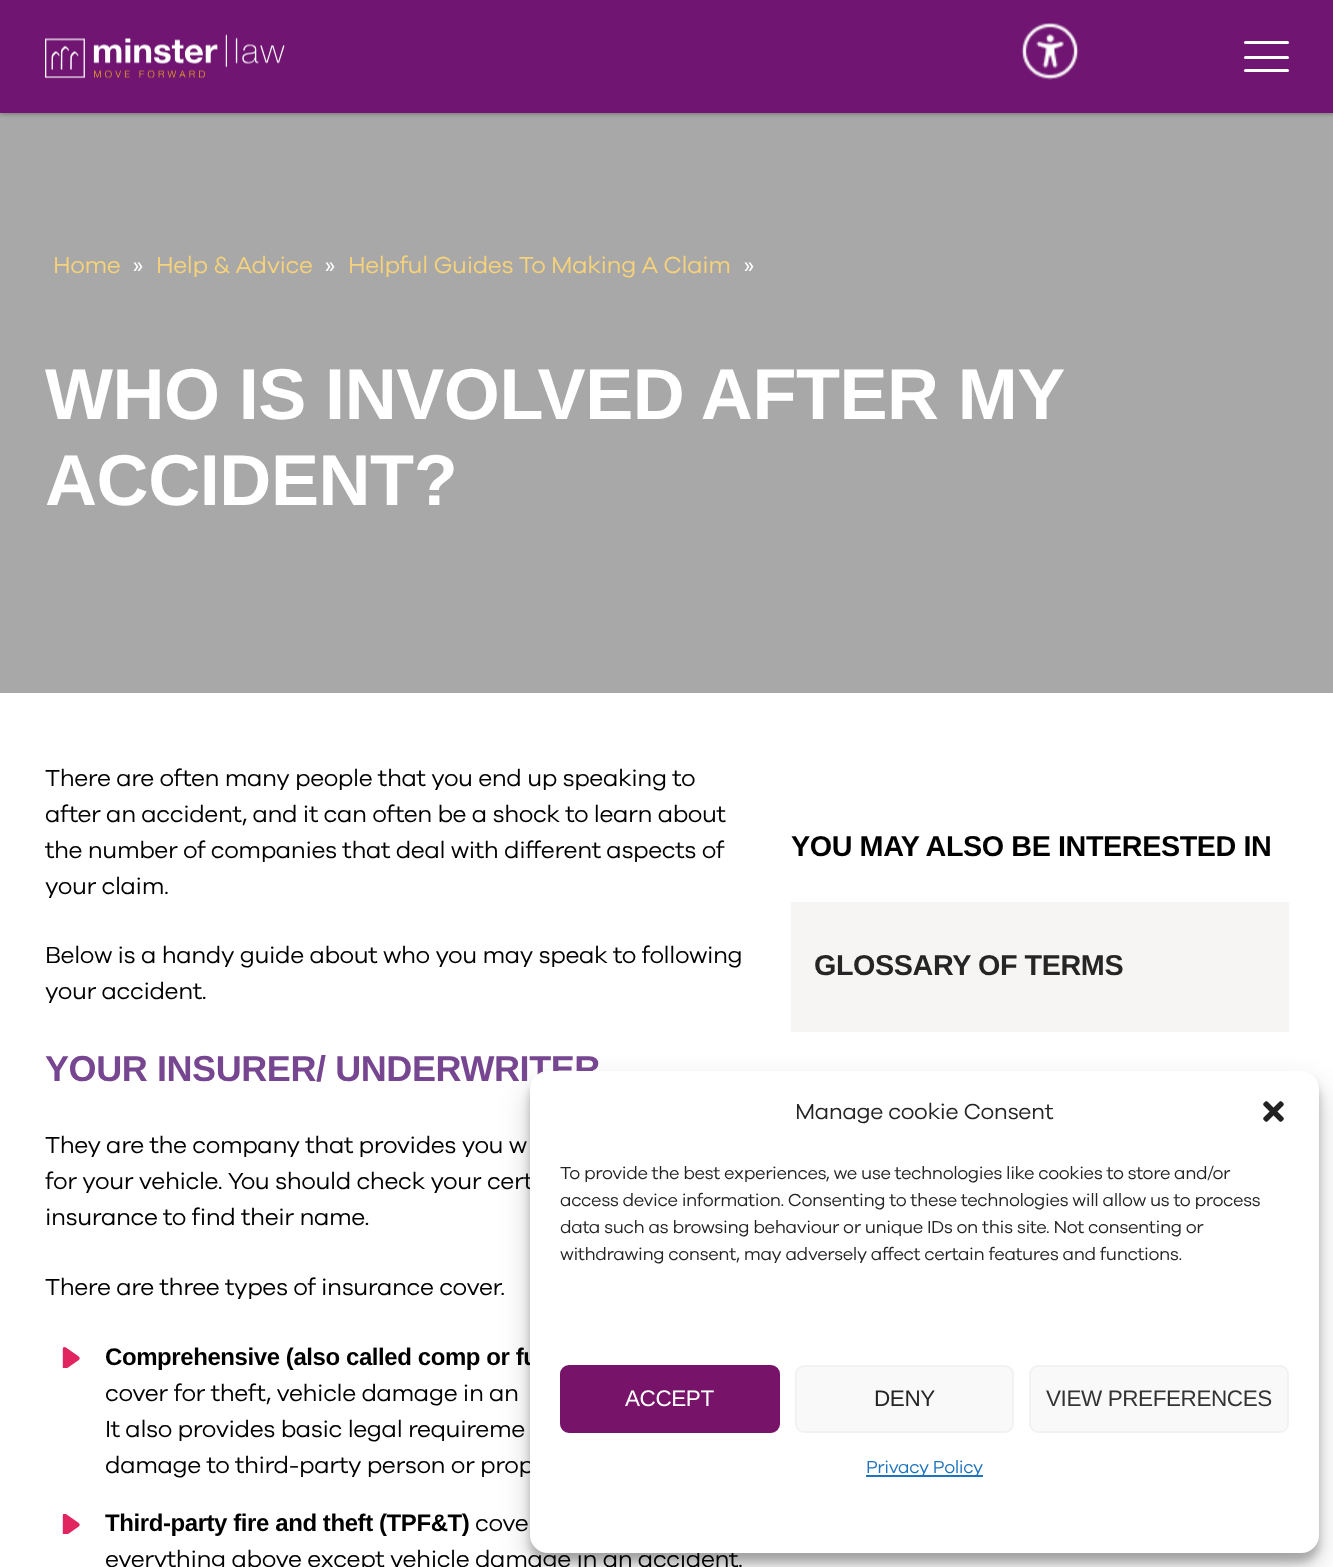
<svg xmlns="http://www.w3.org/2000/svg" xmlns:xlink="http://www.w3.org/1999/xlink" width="1333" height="1567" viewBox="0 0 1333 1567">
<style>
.cls-1{font:24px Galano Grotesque;letter-spacing:-0.42px;fill:#f6d27a}
.cls-2{font:24px Galano Grotesque;letter-spacing:-0.42px;fill:#ffffff}
.cls-3{font:bold 72px Liberation Sans;letter-spacing:-0.42px;fill:#ffffff}
.cls-4{font:24px Galano Grotesque;letter-spacing:-0.42px;fill:#000000}
.cls-5{font:bold 36px Liberation Sans;letter-spacing:-0.42px;fill:#774691}
.cls-6{font:bold 24px Liberation Sans;letter-spacing:-0.42px;fill:#000000}
.cls-7{font:bold 28.75px Liberation Sans;letter-spacing:-0.42px;fill:#000000}
.cls-8{font:bold 28.75px Liberation Sans;letter-spacing:-0.42px;fill:#252525}
.cls-9{font:22.5px Galano Grotesque;letter-spacing:-0.42px;fill:#252525}
.cls-10{font:18px Galano Grotesque;letter-spacing:-0.42px;fill:#252525}
.cls-11{font:22.5px Liberation Sans;letter-spacing:-0.42px;fill:#ffffff}
.cls-12{font:22.5px Liberation Sans;letter-spacing:-0.42px;fill:#252525}
.cls-13{font:22.5px Liberation Sans;letter-spacing:-0.42px;fill:#333333}
.cls-14{font:18px Galano Grotesque;letter-spacing:-0.42px;fill:#1e73be}
</style>
<rect width="100%" height="100%" fill="#ffffff"/>
<rect fill="#a8a8a8" x="0" y="113" width="1333" height="580"/>
<rect fill="#000000" fill-opacity="0.3" filter="blur(2px)" x="0" y="2" width="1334" height="112"/>
<rect fill="#701571" x="0" y="0" width="1333" height="113"/>
<image xlink:href="image0.png" x="45" y="34" width="240" height="45"/>
<image xlink:href="image1.png" x="1021" y="23" width="58" height="57"/>
<rect fill="#ffffff" x="1244" y="41" width="45" height="3" rx="1.5"/>
<rect fill="#ffffff" x="1244" y="56" width="45" height="3" rx="1.5"/>
<rect fill="#ffffff" x="1244" y="69" width="45" height="3" rx="1.5"/>
<image xlink:href="image2.png" x="62" y="1347" width="18" height="21"/>
<image xlink:href="image3.png" x="62" y="1514" width="18" height="20"/>
<rect fill="#f7f5f4" x="791" y="902" width="498" height="130"/>
<rect fill="#000000" fill-opacity="0.23" filter="blur(4.5px)" x="530" y="1080" width="789" height="482" rx="18"/>
<rect fill="#000000" fill-opacity="0.19" filter="blur(15px)" x="530" y="1086" width="789" height="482" rx="18"/>
<text class="cls-1" x="53" y="273">Home</text>
<text class="cls-2" x="133" y="273">»</text>
<text class="cls-1" x="156" y="273">Help &amp; Advice</text>
<text class="cls-2" x="325" y="273">»</text>
<text class="cls-1" x="348" y="273">Helpful Guides To Making A Claim</text>
<text class="cls-2" x="744" y="273">»</text>
<text class="cls-3"><tspan x="45" y="419" word-spacing="-0.5">WHO IS INVOLVED AFTER MY</tspan><tspan x="45" y="505">ACCIDENT?</tspan></text>
<text class="cls-4"><tspan x="45" y="786">There are often many people that you end up speaking to</tspan><tspan x="45" y="822">after an accident, and it can often be a shock to learn about</tspan><tspan x="45" y="858">the number of companies that deal with different aspects of</tspan><tspan x="45" y="894">your claim.</tspan></text>
<text class="cls-4"><tspan x="45" y="963">Below is a handy guide about who you may speak to following</tspan><tspan x="45" y="999">your accident.</tspan></text>
<text class="cls-5" x="45" y="1081">YOUR INSURER/ UNDERWRITER</text>
<text class="cls-4"><tspan x="45" y="1153">They are the company that provides you w</tspan><tspan x="45" y="1189">for your vehicle. You should check your cert</tspan><tspan x="45" y="1225">insurance to find their name.</tspan></text>
<text class="cls-4" x="45" y="1295">There are three types of insurance cover.</text>
<text class="cls-6" x="105" y="1365">Comprehensive (also called comp or fu</text>
<text class="cls-4"><tspan x="105" y="1401">cover for theft, vehicle damage in an</tspan><tspan x="105" y="1437">It also provides basic legal requireme</tspan><tspan x="105" y="1473">damage to third-party person or prop</tspan></text>
<text class="cls-6" x="105" y="1531">Third-party fire and theft (TPF&amp;T)</text>
<text class="cls-4" x="475" y="1531">cove</text>
<text class="cls-4" x="105" y="1567">everything above except vehicle damage in an accident.</text>
<text class="cls-7" x="791" y="856">YOU MAY ALSO BE INTERESTED IN</text>
<text class="cls-8" x="814" y="975">GLOSSARY OF TERMS</text>
<rect fill="#ffffff" x="530" y="1071" width="789" height="482" rx="18"/>
<text class="cls-9" x="795" y="1119">Manage cookie Consent</text>
<image xlink:href="image4.png" x="1263" y="1101" width="21" height="21"/>
<text class="cls-10"><tspan x="560" y="1179">To provide the best experiences, we use technologies like cookies to store and/or</tspan><tspan x="560" y="1206">access device information. Consenting to these technologies will allow us to process</tspan><tspan x="560" y="1233">data such as browsing behaviour or unique IDs on this site. Not consenting or</tspan><tspan x="560" y="1260">withdrawing consent, may adversely affect certain features and functions.</tspan></text>
<rect fill="#771469" stroke="#771469" stroke-width="2" x="561" y="1366" width="218" height="66" rx="8"/>
<text class="cls-11" x="625" y="1406">ACCEPT</text>
<rect fill="#f9f9f9" stroke="#f2f2f2" stroke-width="2" x="796" y="1366" width="217" height="66" rx="8"/>
<text class="cls-12" x="874" y="1406">DENY</text>
<rect fill="#f9f9f9" stroke="#f2f2f2" stroke-width="2" x="1030" y="1366" width="258" height="66" rx="8"/>
<text class="cls-13" x="1046" y="1406">VIEW PREFERENCES</text>
<rect fill="#1e73be" x="866" y="1475" width="117" height="2"/>
<text class="cls-14" x="866" y="1473">Privacy Policy</text>
</svg>
